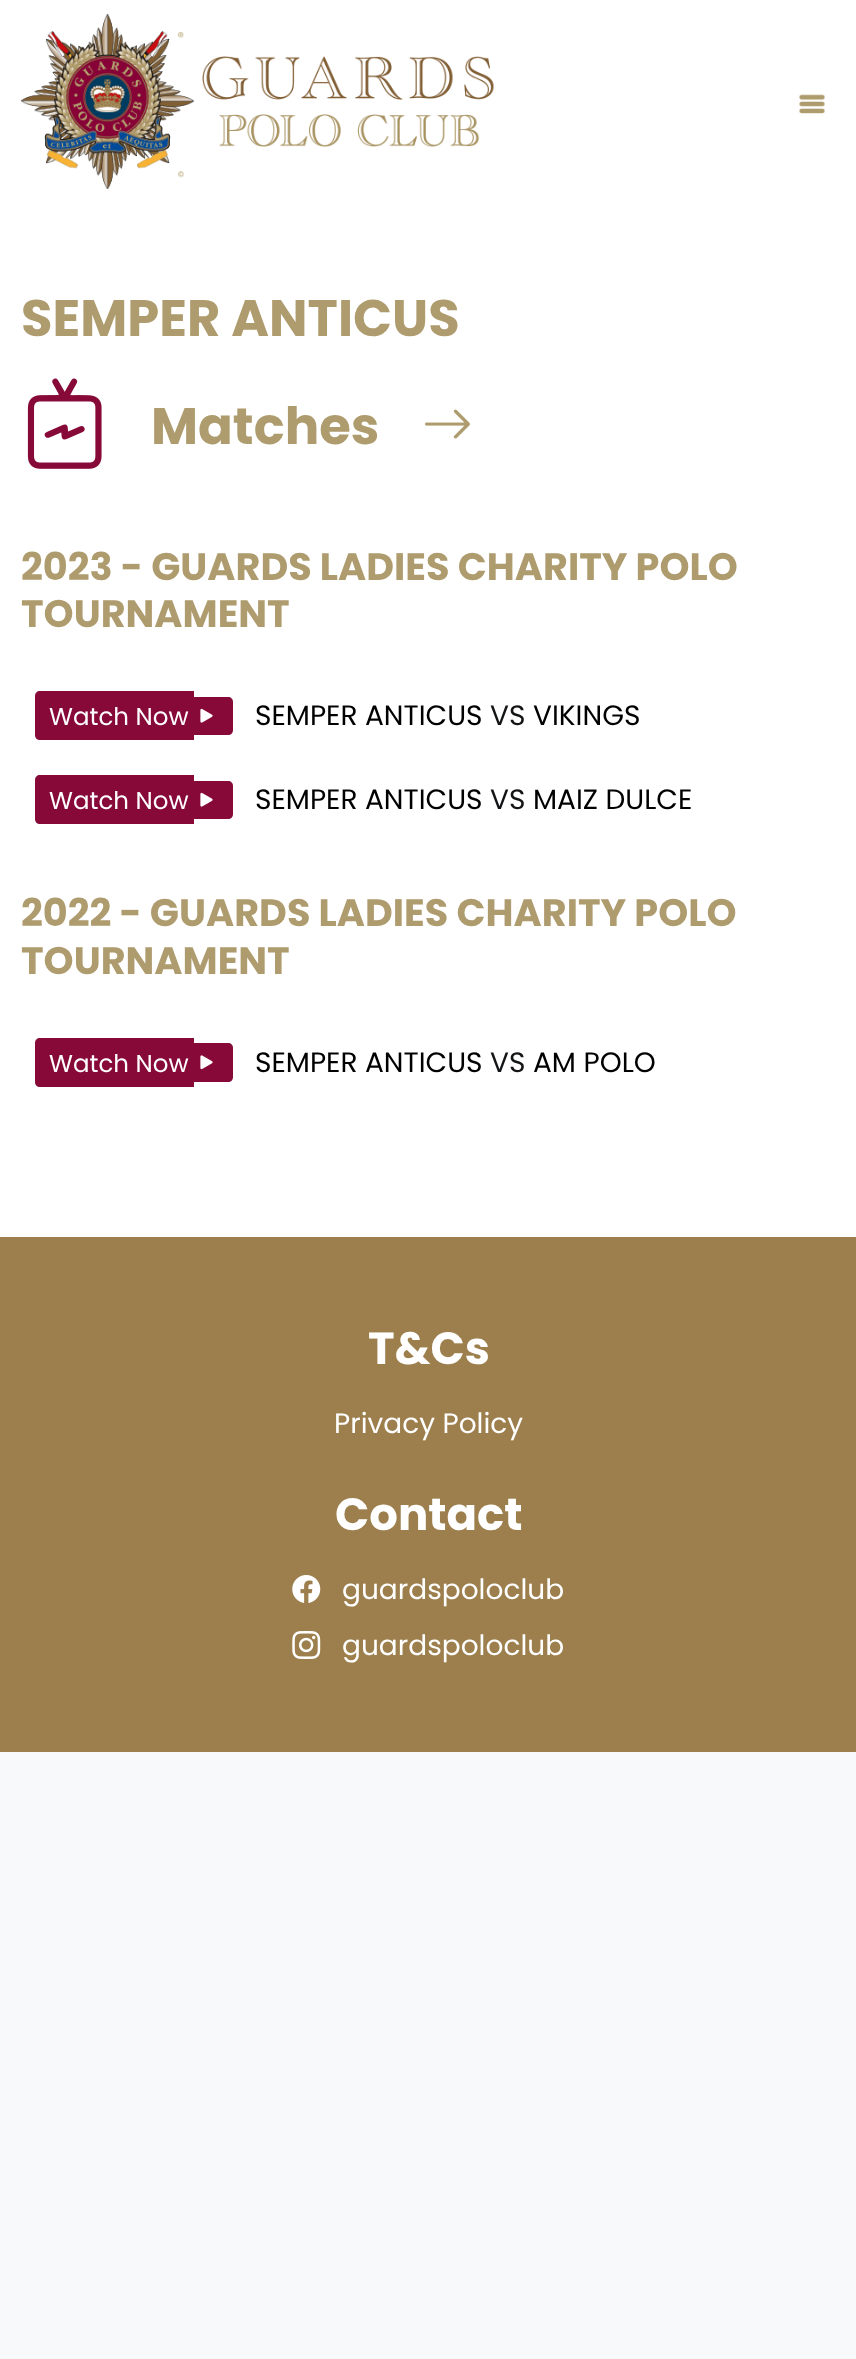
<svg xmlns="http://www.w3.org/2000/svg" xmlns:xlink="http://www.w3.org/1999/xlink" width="856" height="2359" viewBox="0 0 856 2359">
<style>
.cls-1{font:bold 51.25px Poppins;fill:#af9c6e}
.cls-2{font:bold 38.25px Poppins;fill:#af9c6e}
.cls-3{font:24.5px Poppins;fill:#ffffff}
.cls-4{font:28px Poppins;fill:#000000}
.cls-5{font:28px Poppins;fill:#131415}
.cls-6{font:bold 45px Poppins;fill:#ffffff}
.cls-7{font:28px Poppins;fill:#ffffff}
</style>
<rect width="100%" height="100%" fill="#f8f9fa"/>
<rect fill="#ffffff" x="0" y="0" width="856" height="1237"/>
<image xlink:href="image0.png" x="21" y="14" width="473" height="175"/>
<image xlink:href="image1.png" x="798" y="94" width="28" height="20"/>
<image xlink:href="image2.png" x="27" y="378" width="75" height="91"/>
<image xlink:href="image3.png" x="425" y="409" width="45" height="30"/>
<path fill="#860938" d="M40 691H194V740H40C37 740 35 738 35 735V696C35 693 37 691 40 691Z"/>
<path fill="#860938" d="M194 697H228C231 697 233 699 233 702V730C233 733 231 735 228 735H194Z"/>
<image xlink:href="image4.png" x="200" y="708" width="13" height="15"/>
<path fill="#860938" d="M40 775H194V824H40C37 824 35 822 35 819V780C35 777 37 775 40 775Z"/>
<path fill="#860938" d="M194 781H228C231 781 233 783 233 786V814C233 817 231 819 228 819H194Z"/>
<image xlink:href="image4.png" x="200" y="792" width="13" height="15"/>
<path fill="#860938" d="M40 1038H194V1087H40C37 1087 35 1085 35 1082V1043C35 1040 37 1038 40 1038Z"/>
<path fill="#860938" d="M194 1043H228C231 1043 233 1045 233 1048V1077C233 1080 231 1082 228 1082H194Z"/>
<image xlink:href="image5.png" x="200" y="1055" width="13" height="15"/>
<rect fill="#9d7f4d" x="0" y="1237" width="856" height="515"/>
<image xlink:href="image6.png" x="292" y="1575" width="29" height="28"/>
<image xlink:href="image7.png" x="292" y="1631" width="29" height="28"/>
<text class="cls-1" x="21" y="336">SEMPER ANTICUS</text>
<text class="cls-1" x="151" y="444">Matches</text>
<text class="cls-2"><tspan x="21" y="580">2023 - GUARDS LADIES CHARITY POLO</tspan><tspan x="21" y="627">TOURNAMENT</tspan></text>
<text class="cls-3" x="49" y="725">Watch Now</text>
<text class="cls-4" x="255" y="725">SEMPER ANTICUS</text>
<text class="cls-5" x="490" y="725">VS</text>
<text class="cls-4" x="533" y="725">VIKINGS</text>
<text class="cls-3" x="49" y="809">Watch Now</text>
<text class="cls-4" x="255" y="809">SEMPER ANTICUS</text>
<text class="cls-5" x="490" y="809">VS</text>
<text class="cls-4" x="533" y="809">MAIZ DULCE</text>
<text class="cls-2"><tspan x="21" y="926">2022 - GUARDS LADIES CHARITY POLO</tspan><tspan x="21" y="974">TOURNAMENT</tspan></text>
<text class="cls-3" x="49" y="1072">Watch Now</text>
<text class="cls-4" x="255" y="1072">SEMPER ANTICUS</text>
<text class="cls-5" x="490" y="1072">VS</text>
<text class="cls-4" x="533" y="1072">AM POLO</text>
<text class="cls-6" x="368" y="1364">T&amp;Cs</text>
<text class="cls-7" x="334" y="1433">Privacy Policy</text>
<text class="cls-6" x="335" y="1530">Contact</text>
<text class="cls-7" x="342" y="1599">guardspoloclub</text>
<text class="cls-7" x="342" y="1655">guardspoloclub</text>
</svg>
